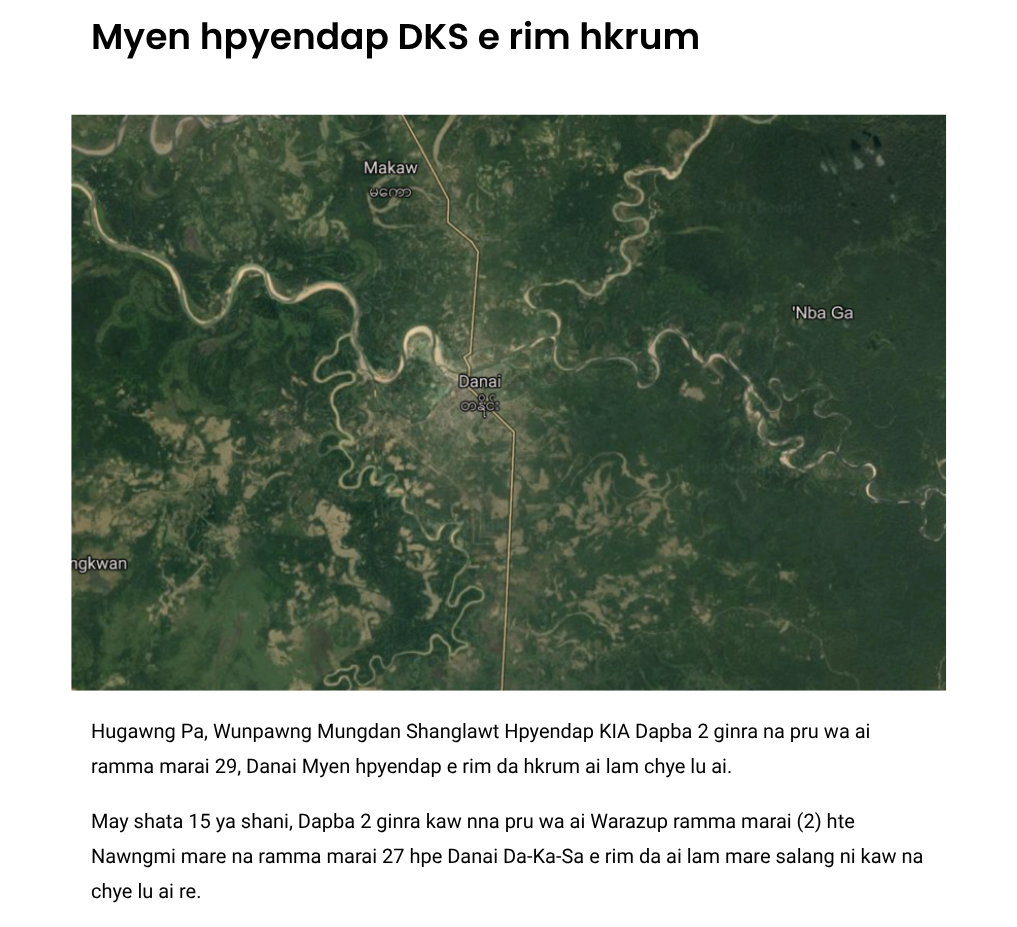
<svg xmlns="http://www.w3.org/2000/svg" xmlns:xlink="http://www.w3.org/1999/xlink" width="1017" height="927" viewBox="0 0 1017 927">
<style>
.cls-1{font:600 36px Poppins;fill:#000000}
.cls-2{font:20px Roboto;fill:#000000}
</style>
<rect width="100%" height="100%" fill="#ffffff"/>
<image xlink:href="image0.png" x="71" y="114" width="876" height="577"/>
<text class="cls-1" x="91" y="49">Myen hpyendap DKS e rim hkrum</text>
<text class="cls-2"><tspan x="91" y="738">Hugawng Pa, Wunpawng Mungdan Shanglawt Hpyendap KIA Dapba 2 ginra na pru wa ai</tspan><tspan x="91" y="773">ramma marai 29, Danai Myen hpyendap e rim da hkrum ai lam chye lu ai.</tspan></text>
<text class="cls-2"><tspan x="91" y="828">May shata 15 ya shani, Dapba 2 ginra kaw nna pru wa ai Warazup ramma marai (2) hte</tspan><tspan x="91" y="863">Nawngmi mare na ramma marai 27 hpe Danai Da-Ka-Sa e rim da ai lam mare salang ni kaw na</tspan><tspan x="91" y="898">chye lu ai re.</tspan></text>
</svg>
